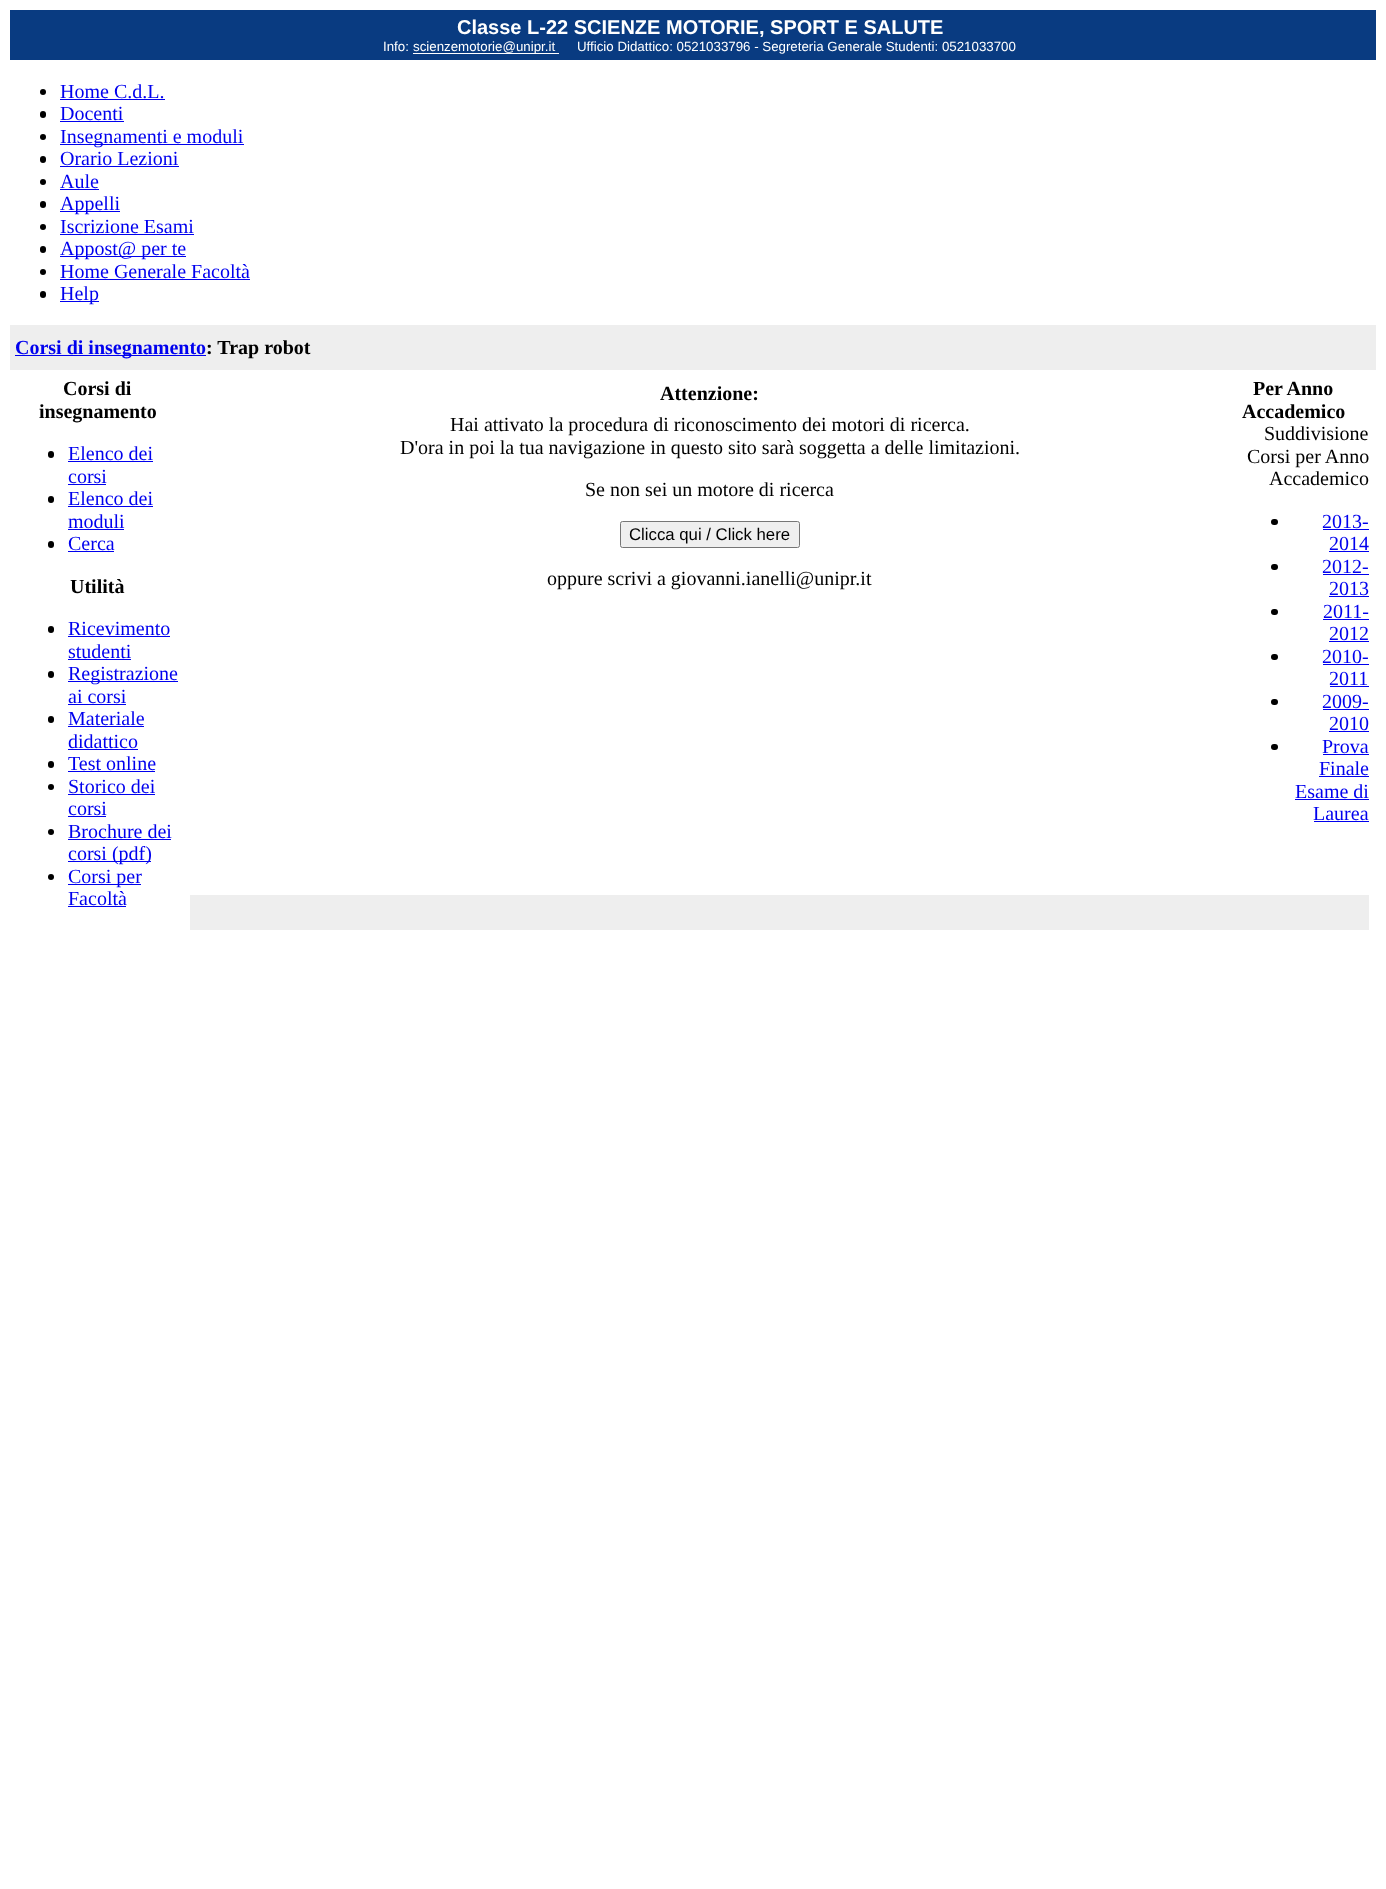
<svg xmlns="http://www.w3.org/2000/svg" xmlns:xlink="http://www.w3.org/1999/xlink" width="1386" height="1889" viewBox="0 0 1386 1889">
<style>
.cls-1{font:bold 20px Liberation Sans;fill:#ffffff}
.cls-2{font:13.3px Liberation Sans;fill:#ffffff}
.cls-3{font:20px Liberation Serif;fill:#0000ee}
.cls-4{font:bold 20px Liberation Serif;fill:#0000ee}
.cls-5{font:bold 20px Liberation Serif;fill:#000000}
.cls-6{font:20px Liberation Serif;fill:#000000}
.cls-7{font:16.75px Liberation Sans;fill:#000000}
</style>
<rect width="100%" height="100%" fill="#ffffff"/>
<rect fill="#093b81" x="10" y="10" width="1366" height="50"/>
<rect fill="#ffffff" x="413" y="53" width="146" height="1"/>
<circle fill="#000000" cx="43" cy="92" r="3"/>
<rect fill="#0000ee" x="60" y="99" width="105" height="1"/>
<rect fill="#000000" x="40" y="111" width="6" height="7" rx="3"/>
<rect fill="#0000ee" x="60" y="121" width="64" height="1"/>
<circle fill="#000000" cx="43" cy="137" r="3"/>
<rect fill="#0000ee" x="60" y="144" width="184" height="1"/>
<rect fill="#000000" x="40" y="156" width="6" height="7" rx="3"/>
<rect fill="#0000ee" x="60" y="166" width="119" height="1"/>
<circle fill="#000000" cx="43" cy="182" r="3"/>
<rect fill="#0000ee" x="60" y="189" width="39" height="1"/>
<rect fill="#000000" x="40" y="201" width="6" height="7" rx="3"/>
<rect fill="#0000ee" x="60" y="211" width="60" height="1"/>
<circle fill="#000000" cx="43" cy="227" r="3"/>
<rect fill="#0000ee" x="60" y="234" width="134" height="1"/>
<rect fill="#000000" x="40" y="246" width="6" height="7" rx="3"/>
<rect fill="#0000ee" x="60" y="256" width="126" height="1"/>
<circle fill="#000000" cx="43" cy="272" r="3"/>
<rect fill="#0000ee" x="60" y="279" width="190" height="1"/>
<rect fill="#000000" x="40" y="291" width="6" height="7" rx="3"/>
<rect fill="#0000ee" x="60" y="301" width="39" height="1"/>
<rect fill="#eeeeee" x="10" y="325" width="1366" height="45"/>
<rect fill="#0000ee" x="15" y="355" width="191" height="1"/>
<rect fill="#000000" x="48" y="451" width="6" height="7" rx="3"/>
<rect fill="#0000ee" x="68" y="461" width="85" height="1"/>
<rect fill="#0000ee" x="68" y="484" width="38" height="1"/>
<rect fill="#000000" x="48" y="496" width="6" height="7" rx="3"/>
<rect fill="#0000ee" x="68" y="506" width="85" height="1"/>
<rect fill="#0000ee" x="68" y="529" width="56" height="1"/>
<rect fill="#000000" x="48" y="541" width="6" height="7" rx="3"/>
<rect fill="#0000ee" x="68" y="551" width="46" height="1"/>
<rect fill="#000000" x="48" y="626" width="6" height="7" rx="3"/>
<rect fill="#0000ee" x="68" y="636" width="102" height="1"/>
<rect fill="#0000ee" x="68" y="659" width="63" height="1"/>
<rect fill="#000000" x="48" y="671" width="6" height="7" rx="3"/>
<rect fill="#0000ee" x="68" y="681" width="110" height="1"/>
<rect fill="#0000ee" x="68" y="704" width="58" height="1"/>
<rect fill="#000000" x="48" y="716" width="6" height="7" rx="3"/>
<rect fill="#0000ee" x="68" y="726" width="76" height="1"/>
<rect fill="#0000ee" x="68" y="749" width="70" height="1"/>
<rect fill="#000000" x="48" y="761" width="6" height="7" rx="3"/>
<rect fill="#0000ee" x="68" y="771" width="87" height="1"/>
<circle fill="#000000" cx="51" cy="787" r="3"/>
<rect fill="#0000ee" x="68" y="794" width="87" height="1"/>
<rect fill="#0000ee" x="68" y="816" width="38" height="1"/>
<circle fill="#000000" cx="51" cy="832" r="3"/>
<rect fill="#0000ee" x="68" y="839" width="103" height="1"/>
<rect fill="#0000ee" x="68" y="861" width="83" height="1"/>
<circle fill="#000000" cx="51" cy="877" r="3"/>
<rect fill="#0000ee" x="68" y="884" width="73" height="1"/>
<rect fill="#0000ee" x="68" y="906" width="58" height="1"/>
<rect fill="#efefef" stroke="#767676" x="620.5" y="521.5" width="179" height="26" rx="2"/>
<rect fill="#000000" x="1271" y="519" width="7" height="6" rx="3"/>
<rect fill="#0000ee" x="1323" y="529" width="46" height="1"/>
<rect fill="#0000ee" x="1329" y="551" width="40" height="1"/>
<rect fill="#000000" x="1271" y="564" width="7" height="6" rx="3"/>
<rect fill="#0000ee" x="1323" y="574" width="46" height="1"/>
<rect fill="#0000ee" x="1329" y="596" width="40" height="1"/>
<rect fill="#000000" x="1271" y="609" width="7" height="6" rx="3"/>
<rect fill="#0000ee" x="1323" y="619" width="46" height="1"/>
<rect fill="#0000ee" x="1329" y="641" width="40" height="1"/>
<rect fill="#000000" x="1271" y="654" width="7" height="6" rx="3"/>
<rect fill="#0000ee" x="1323" y="664" width="46" height="1"/>
<rect fill="#0000ee" x="1330" y="686" width="39" height="1"/>
<rect fill="#000000" x="1271" y="699" width="7" height="6" rx="3"/>
<rect fill="#0000ee" x="1323" y="709" width="46" height="1"/>
<rect fill="#0000ee" x="1329" y="731" width="40" height="1"/>
<rect fill="#000000" x="1271" y="744" width="7" height="6" rx="3"/>
<rect fill="#0000ee" x="1323" y="754" width="46" height="1"/>
<rect fill="#0000ee" x="1319" y="776" width="50" height="1"/>
<rect fill="#0000ee" x="1295" y="799" width="74" height="1"/>
<rect fill="#0000ee" x="1314" y="821" width="55" height="1"/>
<rect fill="#eeeeee" x="190" y="895" width="1179" height="35"/>
<text class="cls-1" x="457" y="34">Classe L-22 SCIENZE MOTORIE, SPORT E SALUTE</text>
<text class="cls-2" x="383" y="51">Info:</text>
<text class="cls-2" x="413" y="51">scienzemotorie@unipr.it</text>
<text class="cls-2" x="577" y="51">Ufficio Didattico: 0521033796 - Segreteria Generale Studenti: 0521033700</text>
<text class="cls-3"><tspan x="60" y="98">Home C.d.L.</tspan><tspan x="60" y="120">Docenti</tspan><tspan x="60" y="143">Insegnamenti e moduli</tspan><tspan x="60" y="165">Orario Lezioni</tspan><tspan x="60" y="188">Aule</tspan><tspan x="60" y="210">Appelli</tspan><tspan x="60" y="233">Iscrizione Esami</tspan><tspan x="60" y="255">Appost@ per te</tspan><tspan x="60" y="278">Home Generale Facoltà</tspan><tspan x="60" y="300">Help</tspan></text>
<text class="cls-4" x="15" y="354">Corsi di insegnamento</text>
<text class="cls-5" x="206" y="354">: Trap robot</text>
<text class="cls-5" x="63" y="395">Corsi di</text>
<text class="cls-5" x="39" y="418">insegnamento</text>
<text class="cls-3"><tspan x="68" y="460">Elenco dei</tspan><tspan x="68" y="483">corsi</tspan><tspan x="68" y="505">Elenco dei</tspan><tspan x="68" y="528">moduli</tspan><tspan x="68" y="550">Cerca</tspan></text>
<text class="cls-5" x="70" y="593">Utilità</text>
<text class="cls-3"><tspan x="68" y="635">Ricevimento</tspan><tspan x="68" y="658">studenti</tspan><tspan x="68" y="680">Registrazione</tspan><tspan x="68" y="703">ai corsi</tspan><tspan x="68" y="725">Materiale</tspan><tspan x="68" y="748">didattico</tspan><tspan x="68" y="770">Test online</tspan><tspan x="68" y="793">Storico dei</tspan><tspan x="68" y="815">corsi</tspan><tspan x="68" y="838">Brochure dei</tspan><tspan x="68" y="860">corsi (pdf)</tspan><tspan x="68" y="883">Corsi per</tspan><tspan x="68" y="905">Facoltà</tspan></text>
<text class="cls-5" x="660" y="400">Attenzione:</text>
<text class="cls-6" x="450" y="431">Hai attivato la procedura di riconoscimento dei motori di ricerca.</text>
<text class="cls-6" x="400" y="454">D'ora in poi la tua navigazione in questo sito sarà soggetta a delle limitazioni.</text>
<text class="cls-6" x="585" y="496">Se non sei un motore di ricerca</text>
<text class="cls-7" x="629" y="540">Clicca qui / Click here</text>
<text class="cls-6" x="547" y="585">oppure scrivi a giovanni.ianelli@unipr.it</text>
<text class="cls-5" x="1253" y="395">Per Anno</text>
<text class="cls-5" x="1242" y="418">Accademico</text>
<text class="cls-6" x="1264" y="440">Suddivisione</text>
<text class="cls-6" x="1247" y="463">Corsi per Anno</text>
<text class="cls-6" x="1269" y="485">Accademico</text>
<text class="cls-3" x="1322" y="528">2013-</text>
<text class="cls-3" x="1329" y="550">2014</text>
<text class="cls-3" x="1322" y="573">2012-</text>
<text class="cls-3" x="1329" y="595">2013</text>
<text class="cls-3" x="1323" y="618">2011-</text>
<text class="cls-3" x="1329" y="640">2012</text>
<text class="cls-3" x="1322" y="663">2010-</text>
<text class="cls-3" x="1329" y="685">2011</text>
<text class="cls-3" x="1322" y="708">2009-</text>
<text class="cls-3" x="1329" y="730">2010</text>
<text class="cls-3" x="1322" y="753">Prova</text>
<text class="cls-3" x="1319" y="775">Finale</text>
<text class="cls-3" x="1295" y="798">Esame di</text>
<text class="cls-3" x="1313" y="820">Laurea</text>
</svg>
